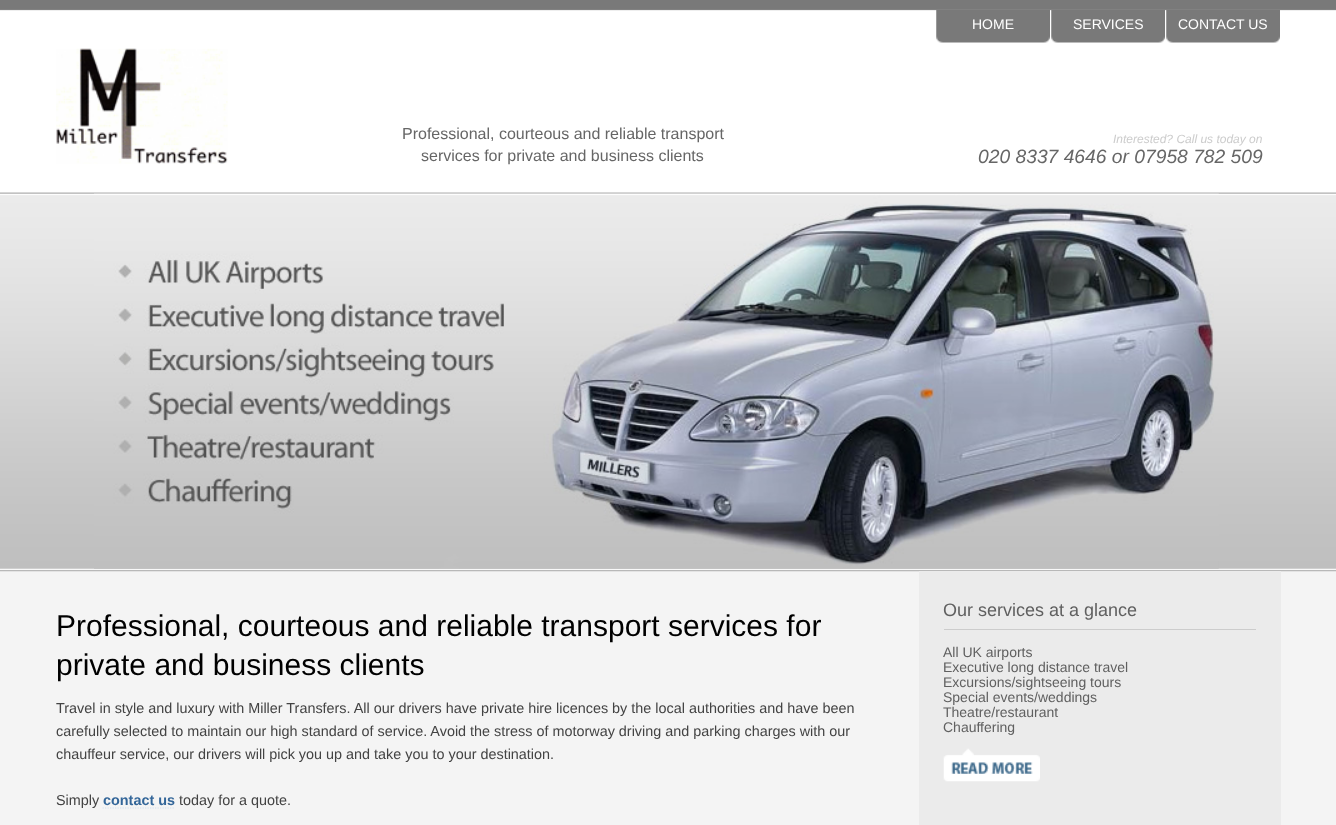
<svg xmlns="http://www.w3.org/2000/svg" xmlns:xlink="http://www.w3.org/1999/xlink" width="1336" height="825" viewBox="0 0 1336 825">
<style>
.cls-1{font:14px Liberation Sans;fill:#ffffff}
.cls-2{font:16px Liberation Sans;fill:#666666}
.cls-3{font:italic 12px Liberation Sans;fill:#cccccc}
.cls-4{font:italic 19.25px Liberation Sans;fill:#666666}
.cls-5{font:30px Liberation Sans;fill:#000000}
.cls-6{font:14.4px Liberation Sans;fill:#434343}
.cls-7{font:bold 14.4px Liberation Sans;fill:#336699}
.cls-8{font:18px Liberation Sans;fill:#606060}
.cls-9{font:14px Liberation Sans;fill:#606060}
</style>
<rect width="100%" height="100%" fill="#f4f4f4"/>
<image xlink:href="image0.png" x="0" y="0" width="1336" height="572"/>
<image xlink:href="image1.png" x="936" y="10" width="114" height="33"/>
<image xlink:href="image1.png" x="1051" y="10" width="114" height="33"/>
<image xlink:href="image1.png" x="1166" y="10" width="114" height="33"/>
<image xlink:href="image2.png" x="56" y="48" width="172" height="116"/>
<image xlink:href="image3.png" x="94" y="193" width="1125" height="376"/>
<path fill="none" stroke="#d1dfed" stroke-width="1.2" stroke-dasharray="1.25 1.25" d="M102.5 808H175"/>
<rect fill="#ebebeb" x="919" y="571" width="362" height="254"/>
<rect fill="#cccccc" x="944" y="629" width="312" height="1"/>
<image xlink:href="image4.png" x="943" y="748" width="97" height="34"/>
<text class="cls-1" x="972" y="29">HOME</text>
<text class="cls-1" x="1073" y="29">SERVICES</text>
<text class="cls-1" x="1178" y="29">CONTACT US</text>
<text class="cls-2" x="402" y="139">Professional, courteous and reliable transport</text>
<text class="cls-2" x="421" y="161">services for private and business clients</text>
<text class="cls-3" x="1113" y="143">Interested? Call us today on</text>
<text class="cls-4" x="978" y="163">020 8337 4646 or 07958 782 509</text>
<text class="cls-5"><tspan x="56" y="636">Professional, courteous and reliable transport services for</tspan><tspan x="56" y="675">private and business clients</tspan></text>
<text class="cls-6"><tspan x="56" y="713">Travel in style and luxury with Miller Transfers. All our drivers have private hire licences by the local authorities and have been</tspan><tspan x="56" y="736">carefully selected to maintain our high standard of service. Avoid the stress of motorway driving and parking charges with our</tspan><tspan x="56" y="759">chauffeur service, our drivers will pick you up and take you to your destination.</tspan></text>
<text class="cls-6" x="56" y="805">Simply</text>
<text class="cls-7" x="103" y="805">contact us</text>
<text class="cls-6" x="179" y="805">today for a quote.</text>
<text class="cls-8" x="943" y="616">Our services at a glance</text>
<text class="cls-9"><tspan x="943" y="657">All UK airports</tspan><tspan x="943" y="672">Executive long distance travel</tspan><tspan x="943" y="687">Excursions/sightseeing tours</tspan><tspan x="943" y="702">Special events/weddings</tspan><tspan x="943" y="717">Theatre/restaurant</tspan><tspan x="943" y="732">Chauffering</tspan></text>
</svg>
